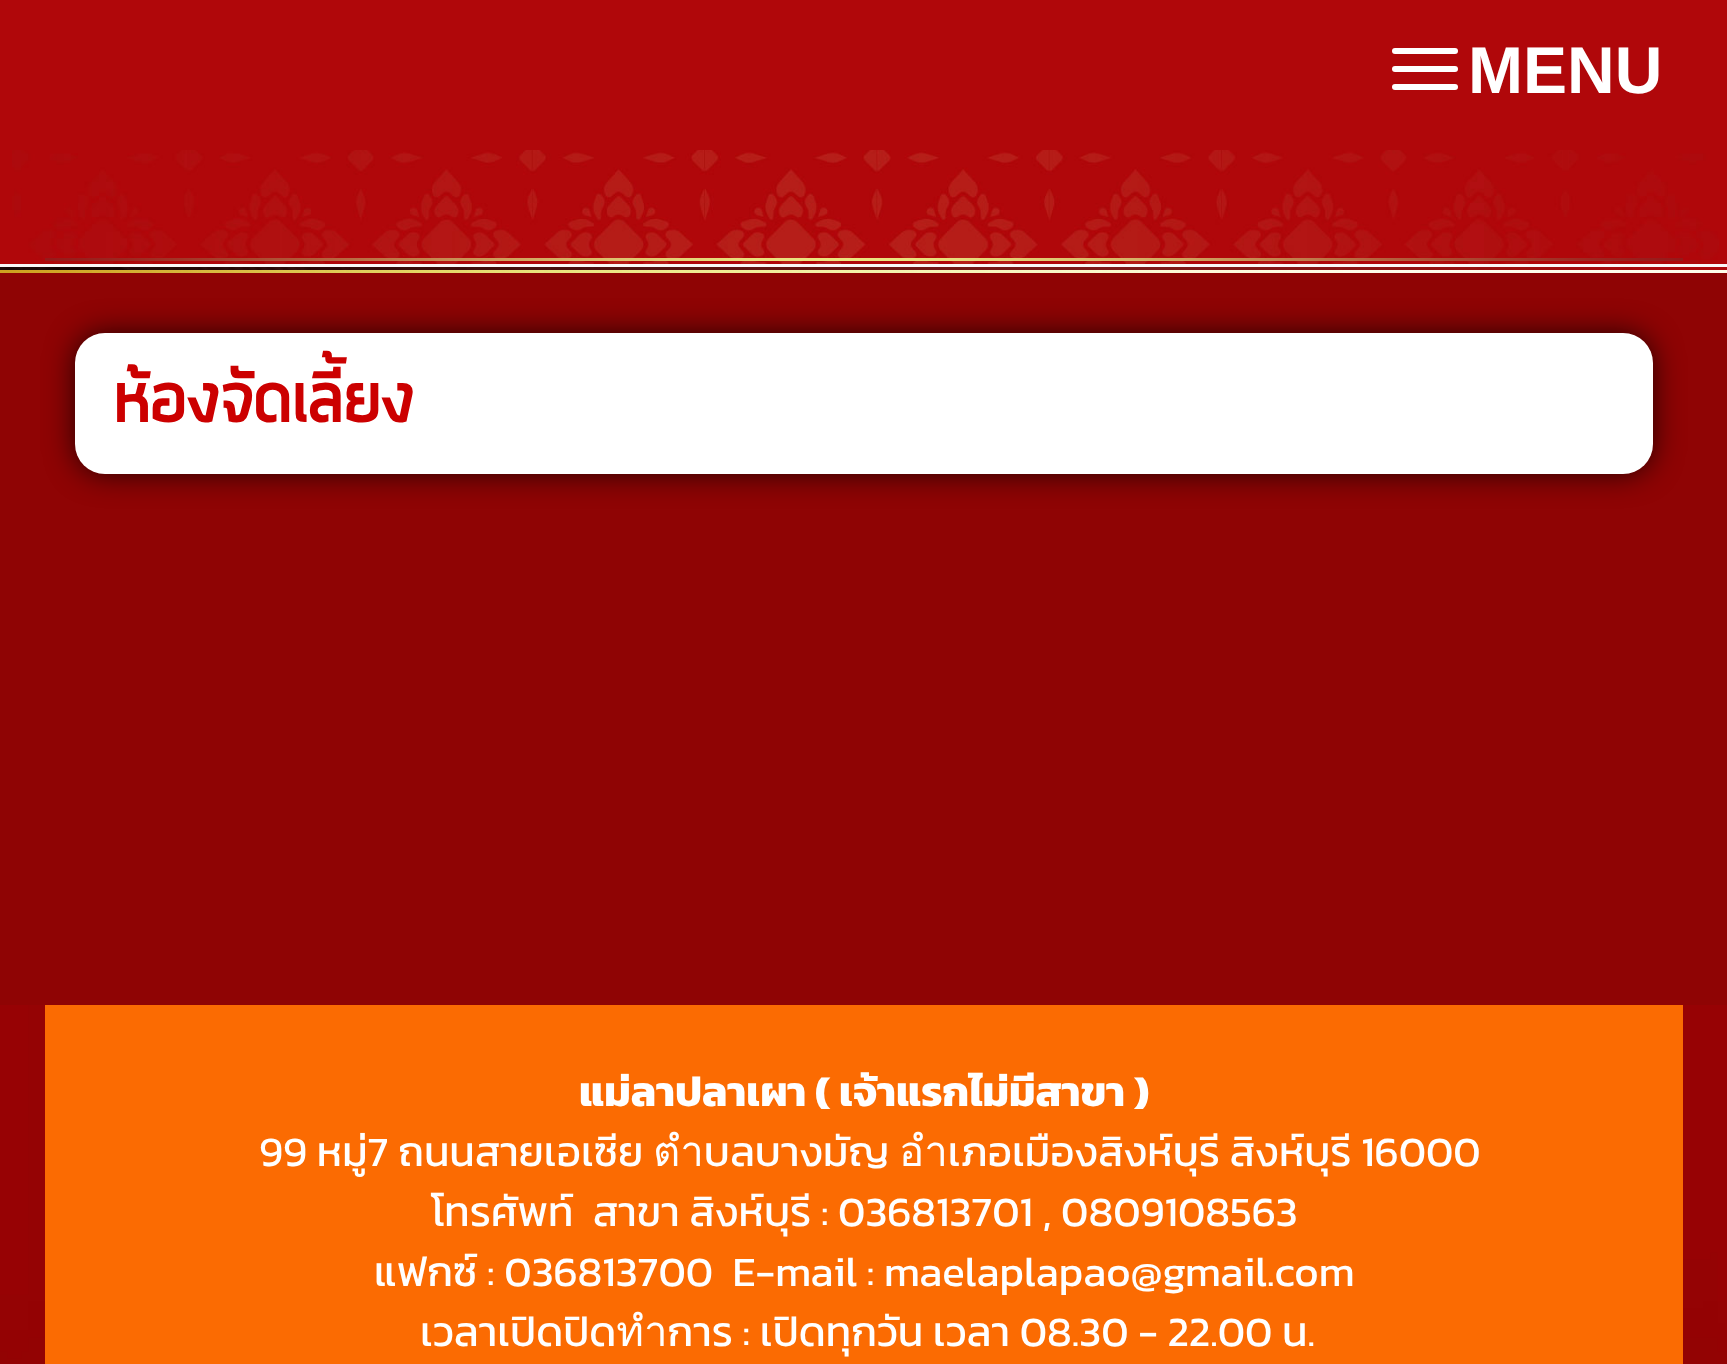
<svg xmlns="http://www.w3.org/2000/svg" xmlns:xlink="http://www.w3.org/1999/xlink" width="1727" height="1364" viewBox="0 0 1727 1364">
<style>
.cls-1{font:bold 66px Liberation Sans;fill:#ffffff}
.cls-2{font:bold 78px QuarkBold;fill:#cc0000}
.cls-3{font:bold 42px Kanit;fill:#ffffff}
.cls-4{font:42px Kanit;fill:#ffffff}
</style>
<rect width="100%" height="100%" fill="#f9f7f7"/>
<rect fill="#b0070a" x="0" y="0" width="1727" height="264"/>
<image xlink:href="image0.png" x="12" y="150" width="1707" height="114"/>
<rect fill="#ffffff" x="1392" y="48" width="66" height="6" rx="3"/>
<rect fill="#ffffff" x="1392" y="66" width="66" height="6" rx="3"/>
<rect fill="#ffffff" x="1392" y="84" width="66" height="6" rx="3"/>
<image xlink:href="image1.png" x="45" y="258" width="1638" height="3"/>
<image xlink:href="image2.png" x="0" y="267" width="1727" height="3"/>
<image xlink:href="image3.png" x="0" y="270" width="1727" height="3"/>
<rect fill="#8f0404" x="0" y="273" width="1727" height="732"/>
<rect fill="#000000" fill-opacity="0.75" filter="blur(15px)" x="75" y="333" width="1578" height="141" rx="30"/>
<rect fill="#ffffff" x="75" y="333" width="1578" height="141" rx="30"/>
<image xlink:href="image4.png" x="0" y="1005" width="1727" height="359"/>
<rect fill="#fb6b02" x="45" y="1005" width="1638" height="359"/>
<text class="cls-1" x="1468" y="93">MENU</text>
<text class="cls-2" x="114" y="422">ห้องจัดเลี้ยง</text>
<text class="cls-3" x="579" y="1106">แม่ลาปลาเผา ( เจ้าแรกไม่มีสาขา )</text>
<text class="cls-4" x="259" y="1166">99 หมู่7 ถนนสายเอเซีย ตำบลบางมัญ อำเภอเมืองสิงห์บุรี สิงห์บุรี 16000</text>
<text class="cls-4" xml:space="preserve" x="431" y="1226">โทรศัพท์  สาขา สิงห์บุรี : 036813701 , 0809108563</text>
<text class="cls-4" xml:space="preserve" x="374" y="1286">แฟกซ์ : 036813700  E-mail : maelaplapao@gmail.com</text>
<text class="cls-4" x="420" y="1346">เวลาเปิดปิดทำการ : เปิดทุกวัน เวลา 08.30 - 22.00 น.</text>
</svg>
